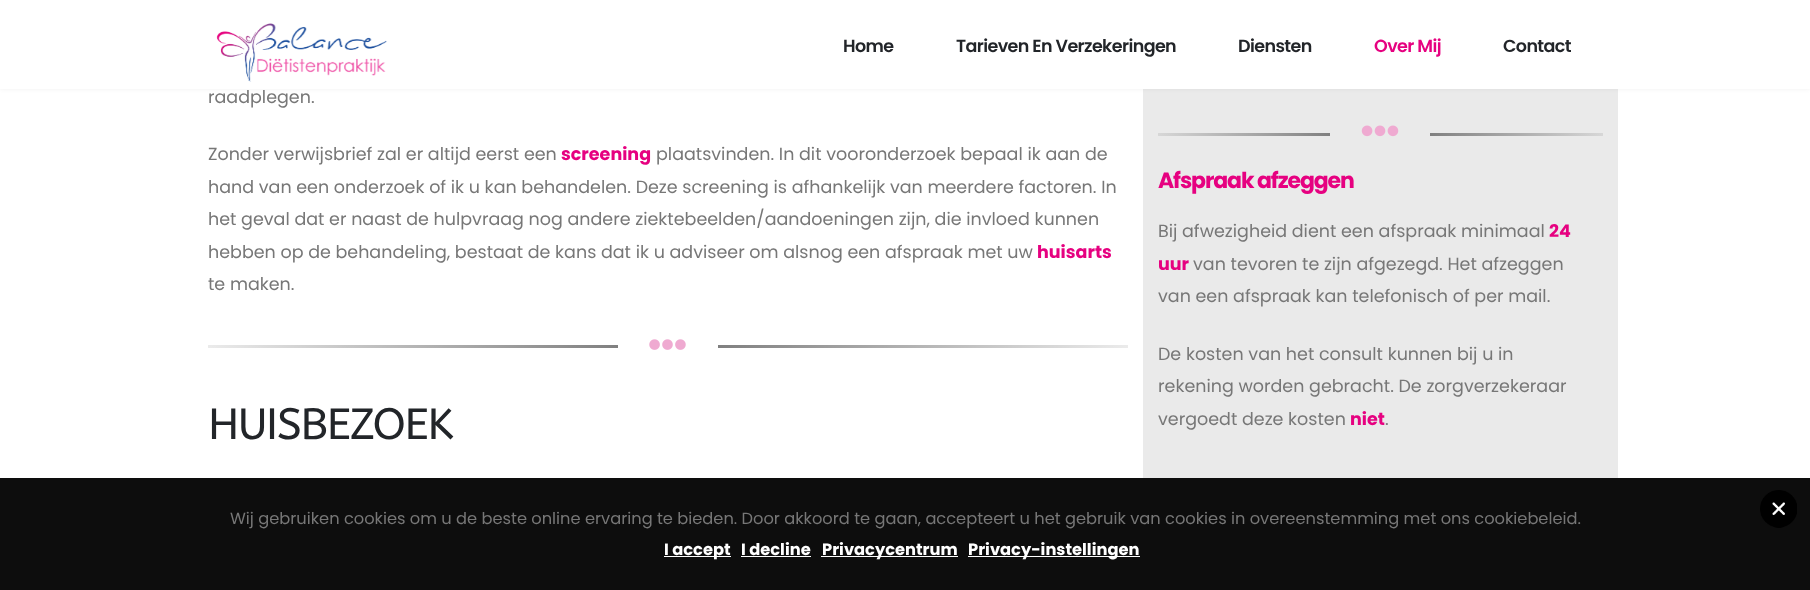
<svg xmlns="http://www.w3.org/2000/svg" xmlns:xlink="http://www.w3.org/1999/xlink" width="1810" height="590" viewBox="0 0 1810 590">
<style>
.cls-1{font:600 17.5px Poppins;letter-spacing:-0.6px;fill:#222529}
.cls-2{font:600 17.5px Poppins;letter-spacing:-0.6px;fill:#e60180}
.cls-3{font:17.5px Poppins;fill:#777777}
.cls-4{font:bold 17.5px Poppins;fill:#e60180}
.cls-5{font:43.75px ABeeZee;letter-spacing:-1.25px;fill:#222529}
.cls-6{font:bold 22px Poppins;letter-spacing:-1.1px;fill:#e60180}
.cls-7{font:16.25px Poppins;fill:#777777}
.cls-8{font:bold 16.25px Poppins;fill:#ffffff}
</style>
<defs>
<linearGradient id="g1" gradientUnits="userSpaceOnUse" x1="208" y1="346" x2="618" y2="346"><stop offset="0" stop-color="#ebebeb"/><stop offset="1" stop-color="#808080"/></linearGradient>
<linearGradient id="g2" gradientUnits="userSpaceOnUse" x1="718" y1="346" x2="1128" y2="346"><stop offset="0" stop-color="#808080"/><stop offset="1" stop-color="#ebebeb"/></linearGradient>
<linearGradient id="g3" gradientUnits="userSpaceOnUse" x1="1158" y1="134" x2="1330" y2="134"><stop offset="0" stop-color="#d7d7d7"/><stop offset="1" stop-color="#808080"/></linearGradient>
<linearGradient id="g4" gradientUnits="userSpaceOnUse" x1="1430" y1="134" x2="1603" y2="134"><stop offset="0" stop-color="#808080"/><stop offset="1" stop-color="#d7d7d7"/></linearGradient>
</defs>
<rect width="100%" height="100%" fill="#ffffff"/>
<rect fill="#eaeaea" x="1143" y="89" width="475" height="389"/>
<rect fill="#000000" fill-opacity="0.06" filter="blur(2px)" x="0" y="0" width="1810" height="89"/>
<rect fill="#ffffff" x="0" y="0" width="1810" height="89"/>
<image xlink:href="image0.png" x="216" y="23" width="171" height="59"/>
<rect fill="url(#g1)" x="208" y="345" width="410" height="3"/>
<image xlink:href="image1.png" x="649" y="339" width="37" height="11"/>
<rect fill="url(#g2)" x="718" y="345" width="410" height="3"/>
<rect fill="url(#g3)" x="1158" y="133" width="172" height="3"/>
<image xlink:href="image2.png" x="1361" y="125" width="38" height="12"/>
<rect fill="url(#g4)" x="1430" y="133" width="173" height="3"/>
<rect fill="#0d0d0d" x="0" y="478" width="1810" height="112"/>
<image xlink:href="image3.png" x="1760" y="490" width="37" height="38"/>
<rect fill="#ffffff" x="664" y="556" width="67" height="1"/>
<rect fill="#ffffff" x="741" y="556" width="70" height="1"/>
<rect fill="#ffffff" x="821" y="556" width="137" height="1"/>
<rect fill="#ffffff" x="968" y="556" width="172" height="1"/>
<text class="cls-1" x="843" y="52">Home</text>
<text class="cls-1" x="956" y="52">Tarieven En Verzekeringen</text>
<text class="cls-1" x="1238" y="52">Diensten</text>
<text class="cls-2" x="1374" y="52">Over Mij</text>
<text class="cls-1" x="1503" y="52">Contact</text>
<text class="cls-3" x="208" y="103">raadplegen.</text>
<text class="cls-3" x="208" y="160">Zonder verwijsbrief zal er altijd eerst een</text>
<text class="cls-4" x="561" y="160">screening</text>
<text class="cls-3" x="656" y="160">plaatsvinden. In dit vooronderzoek bepaal ik aan de</text>
<text class="cls-3"><tspan x="208" y="193">hand van een onderzoek of ik u kan behandelen. Deze screening is afhankelijk van meerdere factoren. In</tspan><tspan x="208" y="225">het geval dat er naast de hulpvraag nog andere ziektebeelden/aandoeningen zijn, die invloed kunnen</tspan><tspan x="208" y="258">hebben op de behandeling, bestaat de kans dat ik u adviseer om alsnog een afspraak met uw</tspan></text>
<text class="cls-4" x="1037" y="258">huisarts</text>
<text class="cls-3" x="208" y="290">te maken.</text>
<text class="cls-5" x="208" y="439">HUISBEZOEK</text>
<text class="cls-6" x="1158" y="188">Afspraak afzeggen</text>
<text class="cls-3" x="1158" y="237">Bij afwezigheid dient een afspraak minimaal</text>
<text class="cls-4" x="1549" y="237">24</text>
<text class="cls-4" x="1158" y="270">uur</text>
<text class="cls-3" x="1193" y="270">van tevoren te zijn afgezegd. Het afzeggen</text>
<text class="cls-3" x="1158" y="302">van een afspraak kan telefonisch of per mail.</text>
<text class="cls-3"><tspan x="1158" y="360">De kosten van het consult kunnen bij u in</tspan><tspan x="1158" y="392">rekening worden gebracht. De zorgverzekeraar</tspan><tspan x="1158" y="425">vergoedt deze kosten</tspan></text>
<text class="cls-4" x="1350" y="425">niet</text>
<text class="cls-3" x="1385" y="425">.</text>
<text class="cls-7" x="230" y="524">Wij gebruiken cookies om u de beste online ervaring te bieden. Door akkoord te gaan, accepteert u het gebruik van cookies in overeenstemming met ons cookiebeleid.</text>
<text class="cls-8" x="664" y="555">I accept</text>
<text class="cls-8" x="741" y="555">I decline</text>
<text class="cls-8" x="822" y="555">Privacycentrum</text>
<text class="cls-8" x="968" y="555">Privacy-instellingen</text>
</svg>
